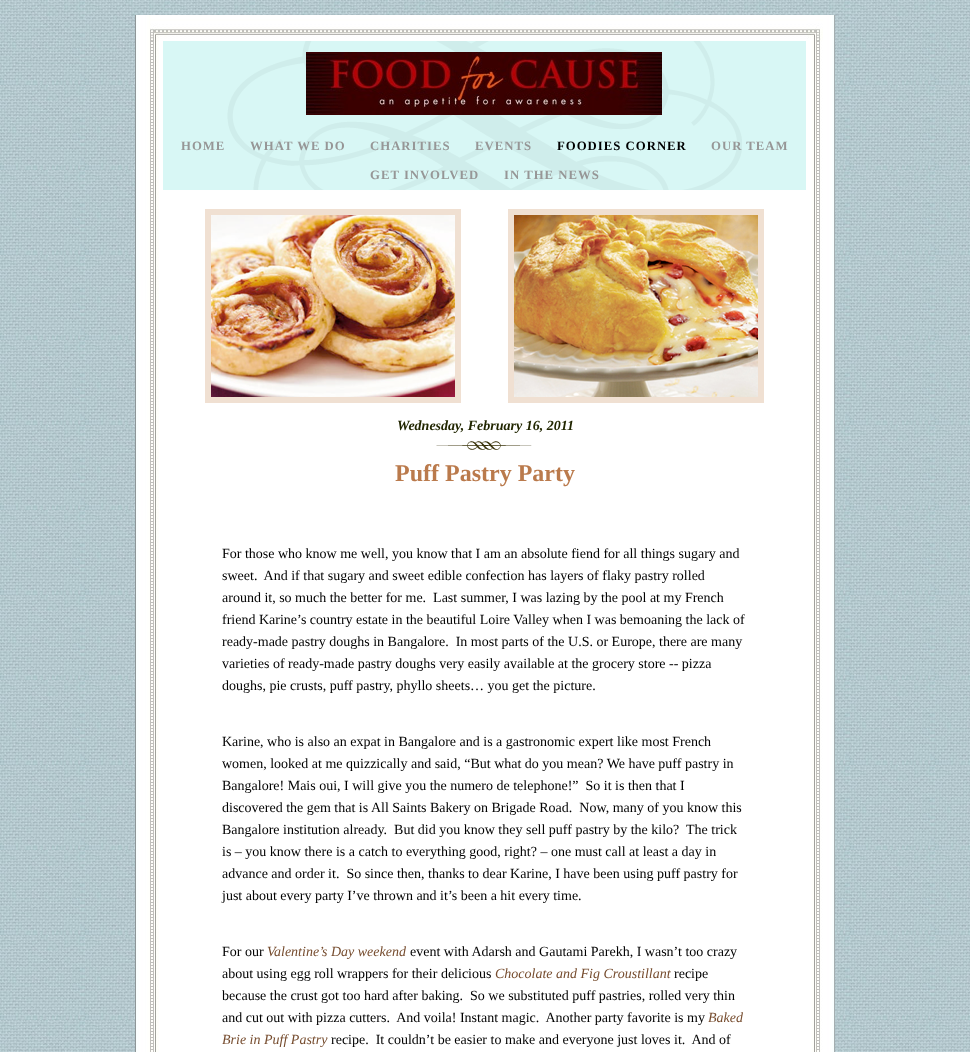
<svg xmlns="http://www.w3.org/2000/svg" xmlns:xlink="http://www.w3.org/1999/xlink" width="970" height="1052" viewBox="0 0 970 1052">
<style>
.cls-1{font:bold 12.75px Liberation Serif;letter-spacing:1px;fill:#969696}
.cls-2{font:bold 12.75px Liberation Serif;letter-spacing:1px;fill:#000000}
.cls-3{font:italic bold 14px Liberation Serif;fill:#212600}
.cls-4{font:bold 24px Liberation Serif;fill:#ba7a4c}
.cls-5{font:14px Liberation Serif;fill:#000000}
.cls-6{font:italic 14px Liberation Serif;fill:#764c2e}
</style>
<rect width="100%" height="100%" fill="#ffffff"/>
<image xlink:href="image0.png" x="0" y="0" width="970" height="1052"/>
<image xlink:href="image1.png" x="135" y="15" width="700" height="1037"/>
<image xlink:href="image2.png" x="150" y="15" width="673" height="26"/>
<image xlink:href="image4.png" x="163" y="41" width="643" height="91"/>
<image xlink:href="image3.png" x="306" y="52" width="356" height="63"/>
<image xlink:href="image5.png" x="163" y="132" width="643" height="58"/>
<rect fill="#f0e0d2" x="205" y="209" width="6" height="188"/>
<rect fill="#f0e0d2" x="211" y="209" width="250" height="6"/>
<image xlink:href="image6.png" x="211" y="215" width="244" height="182"/>
<rect fill="#f0e0d2" x="455" y="215" width="6" height="188"/>
<rect fill="#f0e0d2" x="205" y="397" width="250" height="6"/>
<rect fill="#f0e0d2" x="508" y="209" width="6" height="188"/>
<rect fill="#f0e0d2" x="514" y="209" width="250" height="6"/>
<image xlink:href="image7.png" x="514" y="215" width="244" height="182"/>
<rect fill="#f0e0d2" x="758" y="215" width="6" height="188"/>
<rect fill="#f0e0d2" x="508" y="397" width="250" height="6"/>
<image xlink:href="image8.png" x="436" y="441" width="96" height="9"/>
<text class="cls-1" x="181" y="150">HOME</text>
<text class="cls-1" x="250" y="150">WHAT WE DO</text>
<text class="cls-1" x="370" y="150">CHARITIES</text>
<text class="cls-1" x="475" y="150">EVENTS</text>
<text class="cls-2" x="557" y="150">FOODIES CORNER</text>
<text class="cls-1" x="711" y="150">OUR TEAM</text>
<text class="cls-1" x="370" y="179">GET INVOLVED</text>
<text class="cls-1" x="504" y="179">IN THE NEWS</text>
<text class="cls-3" x="397" y="430">Wednesday, February 16, 2011</text>
<text class="cls-4" x="395" y="481">Puff Pastry Party</text>
<text class="cls-5" xml:space="preserve"><tspan x="222" y="558">For those who know me well, you know that I am an absolute fiend for all things sugary and</tspan><tspan x="222" y="580">sweet.  And if that sugary and sweet edible confection has layers of flaky pastry rolled</tspan><tspan x="222" y="602">around it, so much the better for me.  Last summer, I was lazing by the pool at my French</tspan><tspan x="222" y="624">friend Karine’s country estate in the beautiful Loire Valley when I was bemoaning the lack of</tspan><tspan x="222" y="646">ready-made pastry doughs in Bangalore.  In most parts of the U.S. or Europe, there are many</tspan><tspan x="222" y="668">varieties of ready-made pastry doughs very easily available at the grocery store -- pizza</tspan><tspan x="222" y="690">doughs, pie crusts, puff pastry, phyllo sheets… you get the picture.</tspan></text>
<text class="cls-5" xml:space="preserve"><tspan x="222" y="746">Karine, who is also an expat in Bangalore and is a gastronomic expert like most French</tspan><tspan x="222" y="768">women, looked at me quizzically and said, “But what do you mean? We have puff pastry in</tspan><tspan x="222" y="790">Bangalore! Mais oui, I will give you the numero de telephone!”  So it is then that I</tspan><tspan x="222" y="812">discovered the gem that is All Saints Bakery on Brigade Road.  Now, many of you know this</tspan><tspan x="222" y="834">Bangalore institution already.  But did you know they sell puff pastry by the kilo?  The trick</tspan><tspan x="222" y="856">is – you know there is a catch to everything good, right? – one must call at least a day in</tspan><tspan x="222" y="878">advance and order it.  So since then, thanks to dear Karine, I have been using puff pastry for</tspan><tspan x="222" y="900">just about every party I’ve thrown and it’s been a hit every time.</tspan></text>
<text class="cls-5" x="222" y="956">For our</text>
<text class="cls-6" x="267" y="956">Valentine’s Day weekend</text>
<text class="cls-5" x="410" y="956">event with Adarsh and Gautami Parekh, I wasn’t too crazy</text>
<text class="cls-5" x="222" y="978">about using egg roll wrappers for their delicious</text>
<text class="cls-6" x="495" y="978">Chocolate and Fig Croustillant</text>
<text class="cls-5" x="674" y="978">recipe</text>
<text class="cls-5" xml:space="preserve"><tspan x="222" y="1000">because the crust got too hard after baking.  So we substituted puff pastries, rolled very thin</tspan><tspan x="222" y="1022">and cut out with pizza cutters.  And voila! Instant magic.  Another party favorite is my</tspan></text>
<text class="cls-6" x="708" y="1022">Baked</text>
<text class="cls-6" x="222" y="1044">Brie in Puff Pastry</text>
<text class="cls-5" xml:space="preserve" x="331" y="1044">recipe.  It couldn’t be easier to make and everyone just loves it.  And of</text>
</svg>
